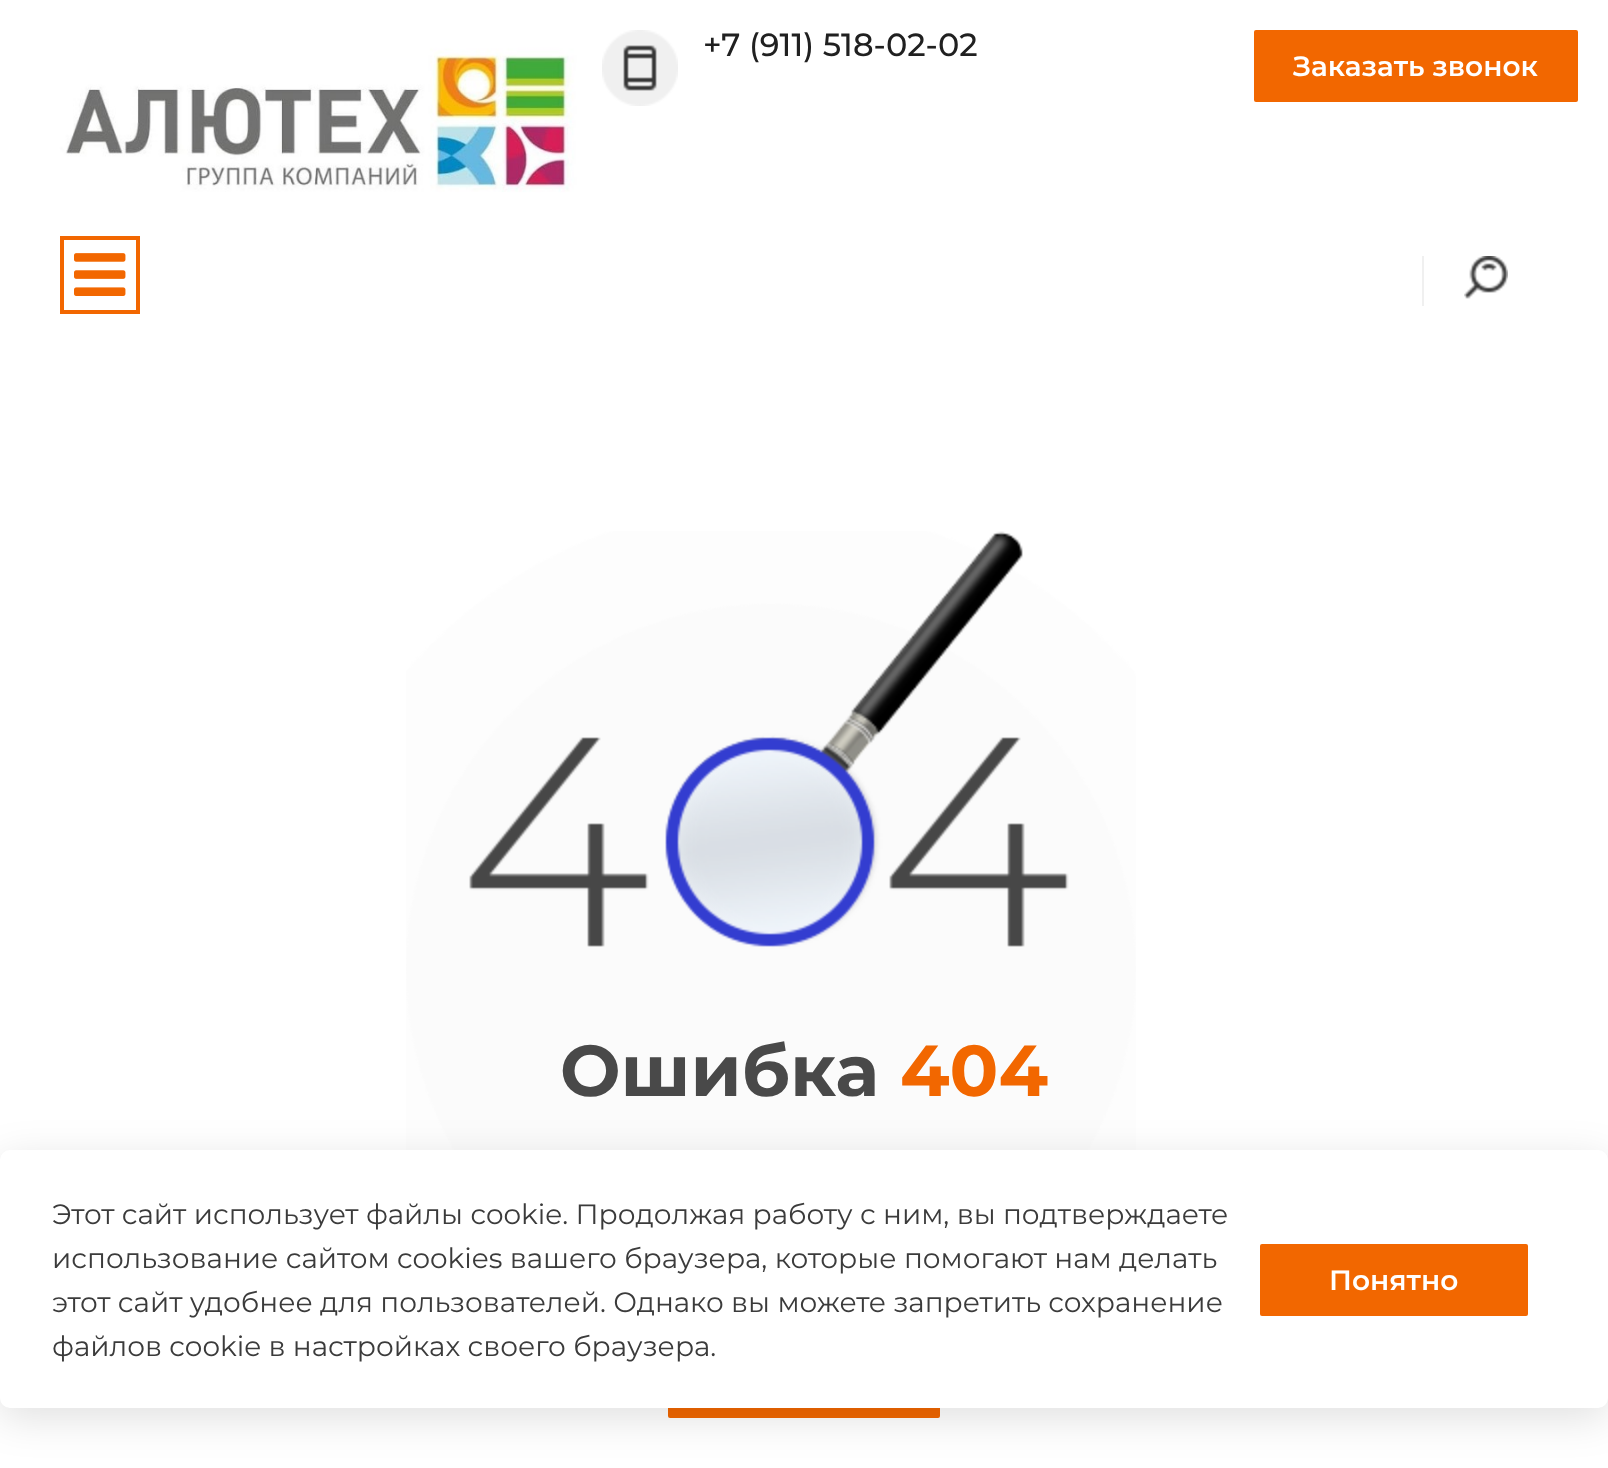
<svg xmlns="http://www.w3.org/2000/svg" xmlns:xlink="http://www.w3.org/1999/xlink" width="1608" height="1468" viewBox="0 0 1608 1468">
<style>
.cls-1{font:500 32px Montserrat;fill:#202020}
.cls-2{font:600 28px Montserrat;fill:#ffffff}
.cls-3{font:bold 72px Montserrat;fill:#494949}
.cls-4{font:bold 72px Montserrat;fill:#f26700}
.cls-5{font:28px Montserrat;fill:#3b3b3b}
</style>
<rect width="100%" height="100%" fill="#ffffff"/>
<image xlink:href="image0.png" x="30" y="20" width="572" height="198"/>
<image xlink:href="image1.png" x="602" y="30" width="76" height="76"/>
<rect fill="#f26700" x="1254" y="30" width="324" height="72" rx="2"/>
<rect fill="none" stroke="#f26700" stroke-width="4" x="62" y="238" width="76" height="74"/>
<image xlink:href="image2.png" x="74" y="253" width="52" height="43"/>
<rect fill="#f0f0f0" x="1422" y="256" width="2" height="50"/>
<image xlink:href="image3.png" x="1464" y="256" width="44" height="43"/>
<image xlink:href="image4.png" x="406" y="531" width="730" height="619"/>
<rect fill="#f26700" x="668" y="1342" width="272" height="76" rx="2"/>
<rect fill="#000000" fill-opacity="0.12" filter="blur(20px)" x="0" y="1160" width="1608" height="258" rx="10"/>
<rect fill="#ffffff" x="0" y="1150" width="1608" height="258" rx="10"/>
<rect fill="#f26700" x="1260" y="1244" width="268" height="72" rx="2"/>
<text class="cls-1" x="703" y="56">+7 (911) 518-02-02</text>
<text class="cls-2" x="1293" y="76">Заказать звонок</text>
<text class="cls-3" x="560" y="1096">Ошибка</text>
<text class="cls-4" x="900" y="1096">404</text>
<text class="cls-5"><tspan x="52" y="1224">Этот сайт использует файлы cookie. Продолжая работу с ним, вы подтверждаете</tspan><tspan x="52" y="1268">использование сайтом cookies вашего браузера, которые помогают нам делать</tspan><tspan x="52" y="1312">этот сайт удобнее для пользователей. Однако вы можете запретить сохранение</tspan><tspan x="52" y="1356">файлов cookie в настройках своего браузера.</tspan></text>
<text class="cls-2" x="1329" y="1290">Понятно</text>
</svg>
